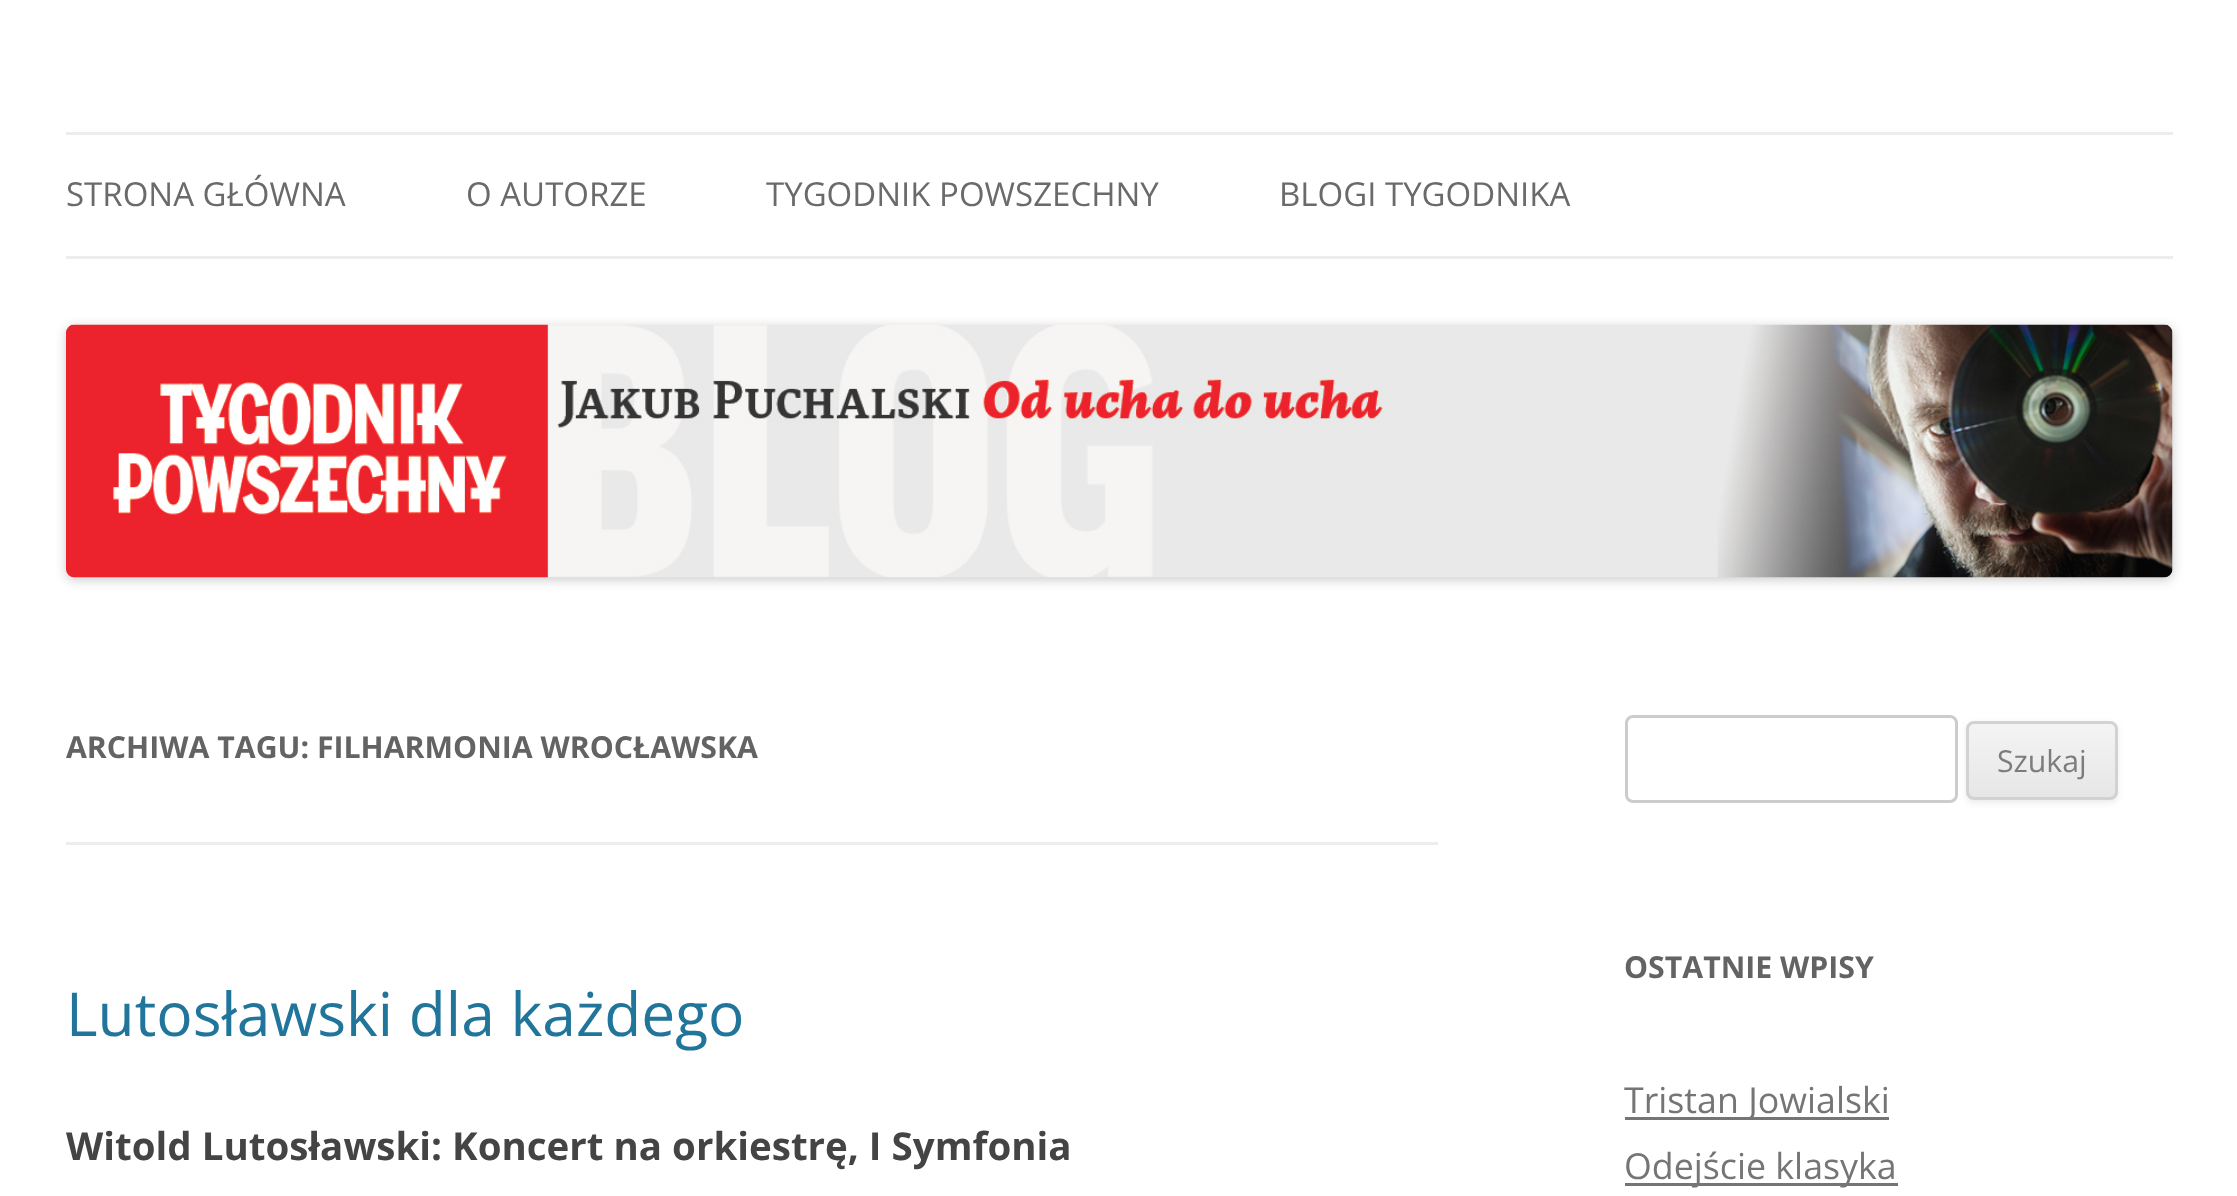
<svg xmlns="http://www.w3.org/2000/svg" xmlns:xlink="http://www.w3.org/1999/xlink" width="2237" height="1196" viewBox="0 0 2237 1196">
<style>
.cls-1{font:33px Open Sans;fill:#6a6a6a}
.cls-2{font:bold 30.25px Open Sans;fill:#636363}
.cls-3{font:60.5px Open Sans;fill:#21759b}
.cls-4{font:bold 38.5px Open Sans;fill:#444444}
.cls-5{font:30.25px Open Sans;fill:#7c7c7c}
.cls-6{font:35.75px Open Sans;fill:#757575}
</style>
<defs>
<clipPath id="clip1"><rect x="1966" y="721" width="152" height="79" rx="8"/></clipPath>
<linearGradient id="g1" gradientUnits="userSpaceOnUse" x1="2042" y1="723" x2="2042" y2="798"><stop offset="0" stop-color="#f4f4f4"/><stop offset="1" stop-color="#e6e6e6"/></linearGradient>
</defs>
<rect width="100%" height="100%" fill="#ffffff"/>
<rect fill="#ededed" x="66" y="132" width="2107" height="3"/>
<rect fill="#ededed" x="66" y="256" width="2107" height="3"/>
<rect fill="#000000" fill-opacity="0.2" filter="blur(5.5px)" x="66" y="327" width="2107" height="253" rx="8"/>
<image xlink:href="image0.png" x="66" y="324" width="2107" height="254"/>
<rect fill="#ededed" x="66" y="842" width="1372" height="3"/>
<rect fill="none" stroke="#cccccc" stroke-width="3" x="1626.5" y="716.5" width="330" height="85" rx="6.5"/>
<rect fill="#404040" fill-opacity="0.1" filter="blur(3px)" x="1966" y="723" width="152" height="80" rx="8"/>
<g clip-path="url(#clip1)">
<rect fill="url(#g1)" x="1966" y="723" width="152" height="75"/>
</g>
<rect fill="none" stroke="#d2d2d2" stroke-width="3" x="1967.5" y="722.5" width="149" height="76" rx="6.5"/>
<rect fill="#757575" x="1625" y="1117" width="264" height="3"/>
<rect fill="#757575" x="1625" y="1183" width="273" height="3"/>
<text class="cls-1" x="66" y="206">STRONA GŁÓWNA</text>
<text class="cls-1" x="466" y="206">O AUTORZE</text>
<text class="cls-1" x="766" y="206">TYGODNIK POWSZECHNY</text>
<text class="cls-1" x="1279" y="206">BLOGI TYGODNIKA</text>
<text class="cls-2" x="66" y="758">ARCHIWA TAGU: FILHARMONIA WROCŁAWSKA</text>
<text class="cls-3" x="66" y="1036">Lutosławski dla każdego</text>
<text class="cls-4" x="66" y="1160">Witold Lutosławski: Koncert na orkiestrę, I Symfonia</text>
<text class="cls-5" x="1997" y="772">Szukaj</text>
<text class="cls-2" x="1624" y="978">OSTATNIE WPISY</text>
<text class="cls-6"><tspan x="1624" y="1113">Tristan Jowialski</tspan><tspan x="1624" y="1179">Odejście klasyka</tspan></text>
</svg>
